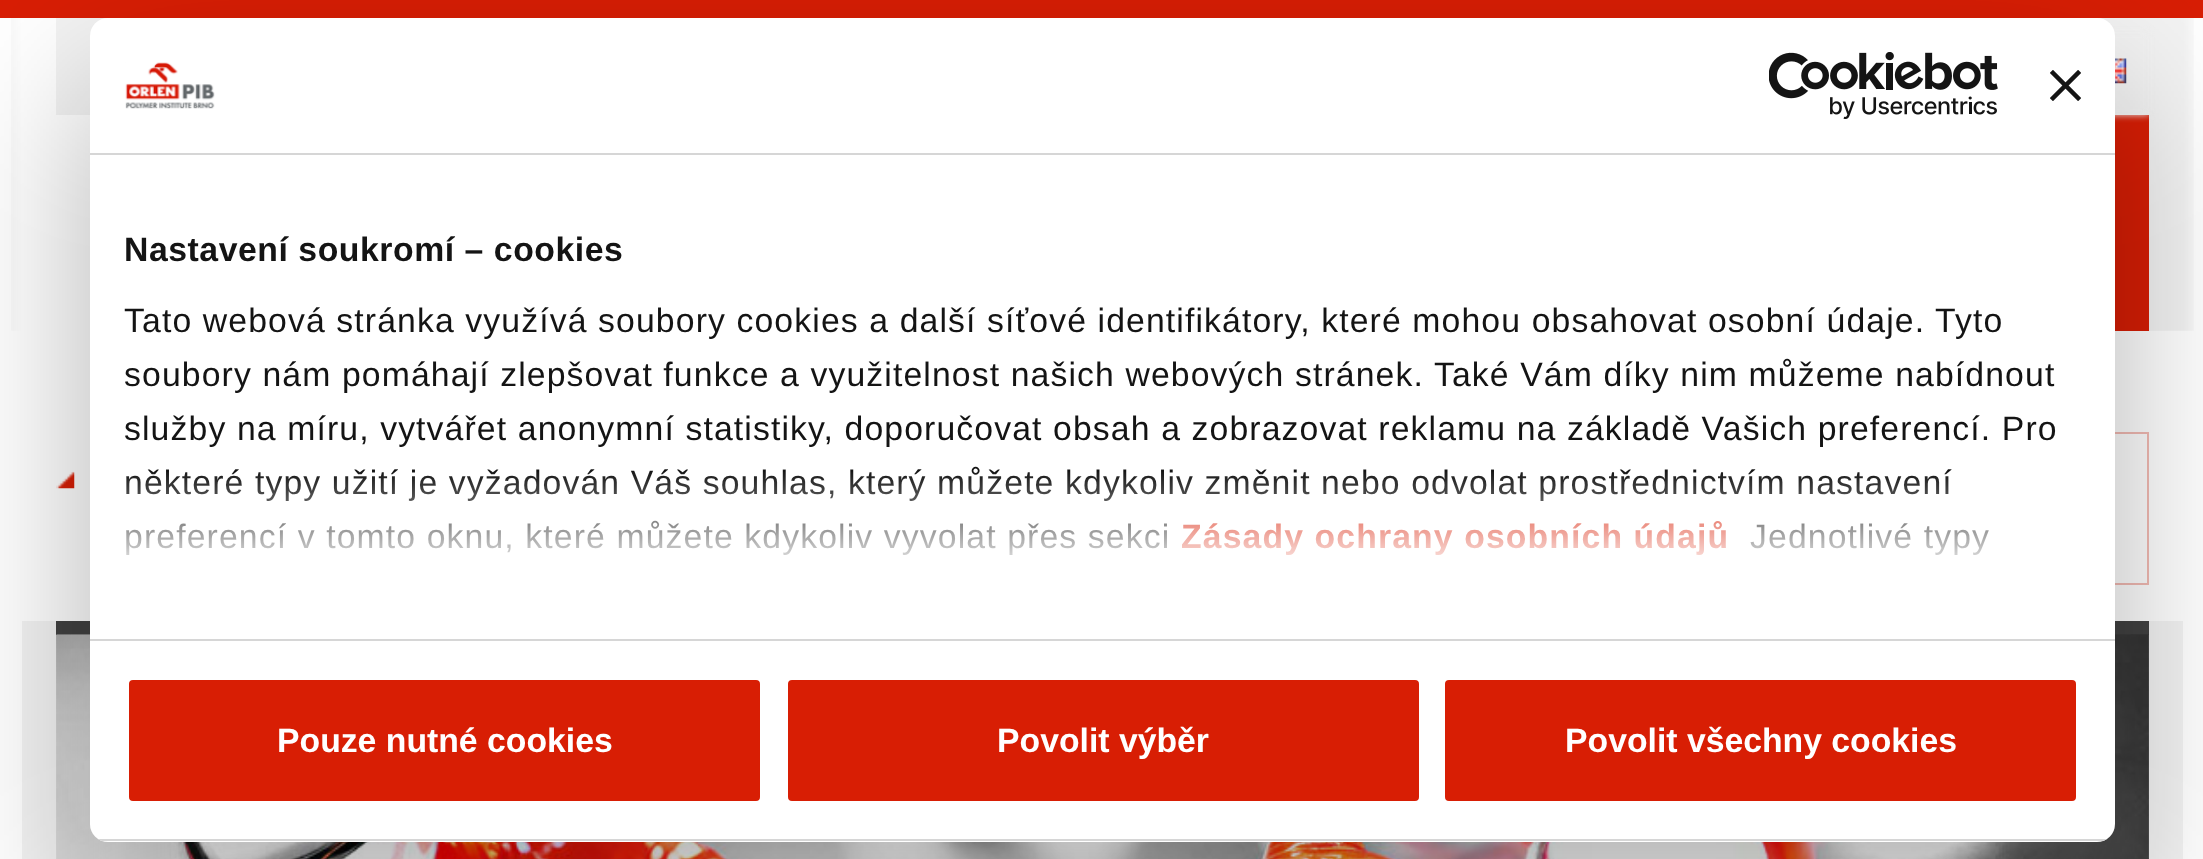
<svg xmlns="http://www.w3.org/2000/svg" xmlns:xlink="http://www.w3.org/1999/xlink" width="2203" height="859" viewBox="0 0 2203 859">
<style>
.cls-1{font:bold 33.75px Liberation Sans;letter-spacing:0.55px;fill:#141414}
.cls-2{font:33.75px Liberation Sans;letter-spacing:1.12px;fill:#141414}
.cls-3{font:bold 33.75px Liberation Sans;letter-spacing:1.12px;fill:#d81e04}
.cls-4{font:bold 33.75px Liberation Sans;fill:#ffffff}
</style>
<defs>
<clipPath id="clip1"><rect x="90" y="18" width="2025" height="824" rx="18"/></clipPath>
<linearGradient id="g1" gradientUnits="userSpaceOnUse" x1="1088" y1="639" x2="1088" y2="470"><stop offset="0" stop-color="#ffffff"/><stop offset="0.5" stop-color="#ffffff" stop-opacity="0.8"/><stop offset="1" stop-color="#ffffff" stop-opacity="0"/></linearGradient>
</defs>
<rect width="100%" height="100%" fill="#ffffff"/>
<rect fill="#d81e05" x="0" y="0" width="2203" height="18"/>
<image xlink:href="image0.png" x="11" y="18" width="2183" height="313"/>
<rect fill="#f3f3f3" x="56" y="18" width="1075" height="97"/>
<rect fill="#d81e05" x="2115" y="115" width="34" height="216"/>
<rect fill="#f3f3f3" filter="blur(3.5px)" x="1978" y="32" width="171" height="83"/>
<image xlink:href="image1.png" x="2115" y="58" width="12" height="26"/>
<image xlink:href="image2.png" x="56" y="471" width="19" height="18"/>
<rect fill="none" stroke="#f3bbb4" stroke-width="2" x="1812" y="433" width="336" height="151"/>
<rect fill="#f3f3f3" x="22" y="621" width="2161" height="238"/>
<rect fill="#424242" x="56" y="621" width="2093" height="14"/>
<image xlink:href="image3.png" x="56" y="634" width="2093" height="225"/>
<image xlink:href="image4.png" x="56" y="634" width="2093" height="225"/>
<image xlink:href="image5.png" x="56" y="634" width="2093" height="225"/>
<rect fill="#000000" fill-opacity="0.3" filter="blur(76.5px)" x="90" y="90" width="2025" height="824" rx="18"/>
<rect fill="#ffffff" x="90" y="18" width="2025" height="824" rx="18"/>
<rect fill="#d6d6d6" x="90" y="153" width="2025" height="2"/>
<image xlink:href="image6.png" x="125" y="62" width="90" height="47"/>
<image xlink:href="image7.png" x="1769" y="52" width="229" height="67"/>
<image xlink:href="image8.png" x="2050" y="70" width="31" height="31"/>
<rect fill="#d6d6d6" x="90" y="639" width="2025" height="2"/>
<g clip-path="url(#clip1)">
<rect fill="#d6d6d6" x="90" y="839" width="2025" height="2"/>
</g>
<rect fill="#d81e04" stroke="#ffffff" stroke-width="5" x="126.5" y="677.5" width="636" height="126" rx="6.5"/>
<rect fill="#d81e04" stroke="#ffffff" stroke-width="5" x="785.5" y="677.5" width="636" height="126" rx="6.5"/>
<rect fill="#d81e04" stroke="#ffffff" stroke-width="5" x="1442.5" y="677.5" width="636" height="126" rx="6.5"/>
<text class="cls-1" x="124" y="261">Nastavení soukromí – cookies</text>
<text class="cls-2"><tspan x="124" y="332">Tato webová stránka využívá soubory cookies a další síťové identifikátory, které mohou obsahovat osobní údaje. Tyto</tspan><tspan x="124" y="386">soubory nám pomáhají zlepšovat funkce a využitelnost našich webových stránek. Také Vám díky nim můžeme nabídnout</tspan><tspan x="124" y="440">služby na míru, vytvářet anonymní statistiky, doporučovat obsah a zobrazovat reklamu na základě Vašich preferencí. Pro</tspan><tspan x="124" y="494">některé typy užití je vyžadován Váš souhlas, který můžete kdykoliv změnit nebo odvolat prostřednictvím nastavení</tspan><tspan x="124" y="548">preferencí v tomto oknu, které můžete kdykoliv vyvolat přes sekci</tspan></text>
<text class="cls-3" x="1181" y="548">Zásady ochrany osobních údajů</text>
<text class="cls-2" x="1750" y="548">Jednotlivé typy</text>
<rect fill="url(#g1)" x="125" y="472" width="1865" height="83"/>
<text class="cls-4" x="277" y="752">Pouze nutné cookies</text>
<text class="cls-4" x="997" y="752">Povolit výběr</text>
<text class="cls-4" x="1565" y="752">Povolit všechny cookies</text>
</svg>
